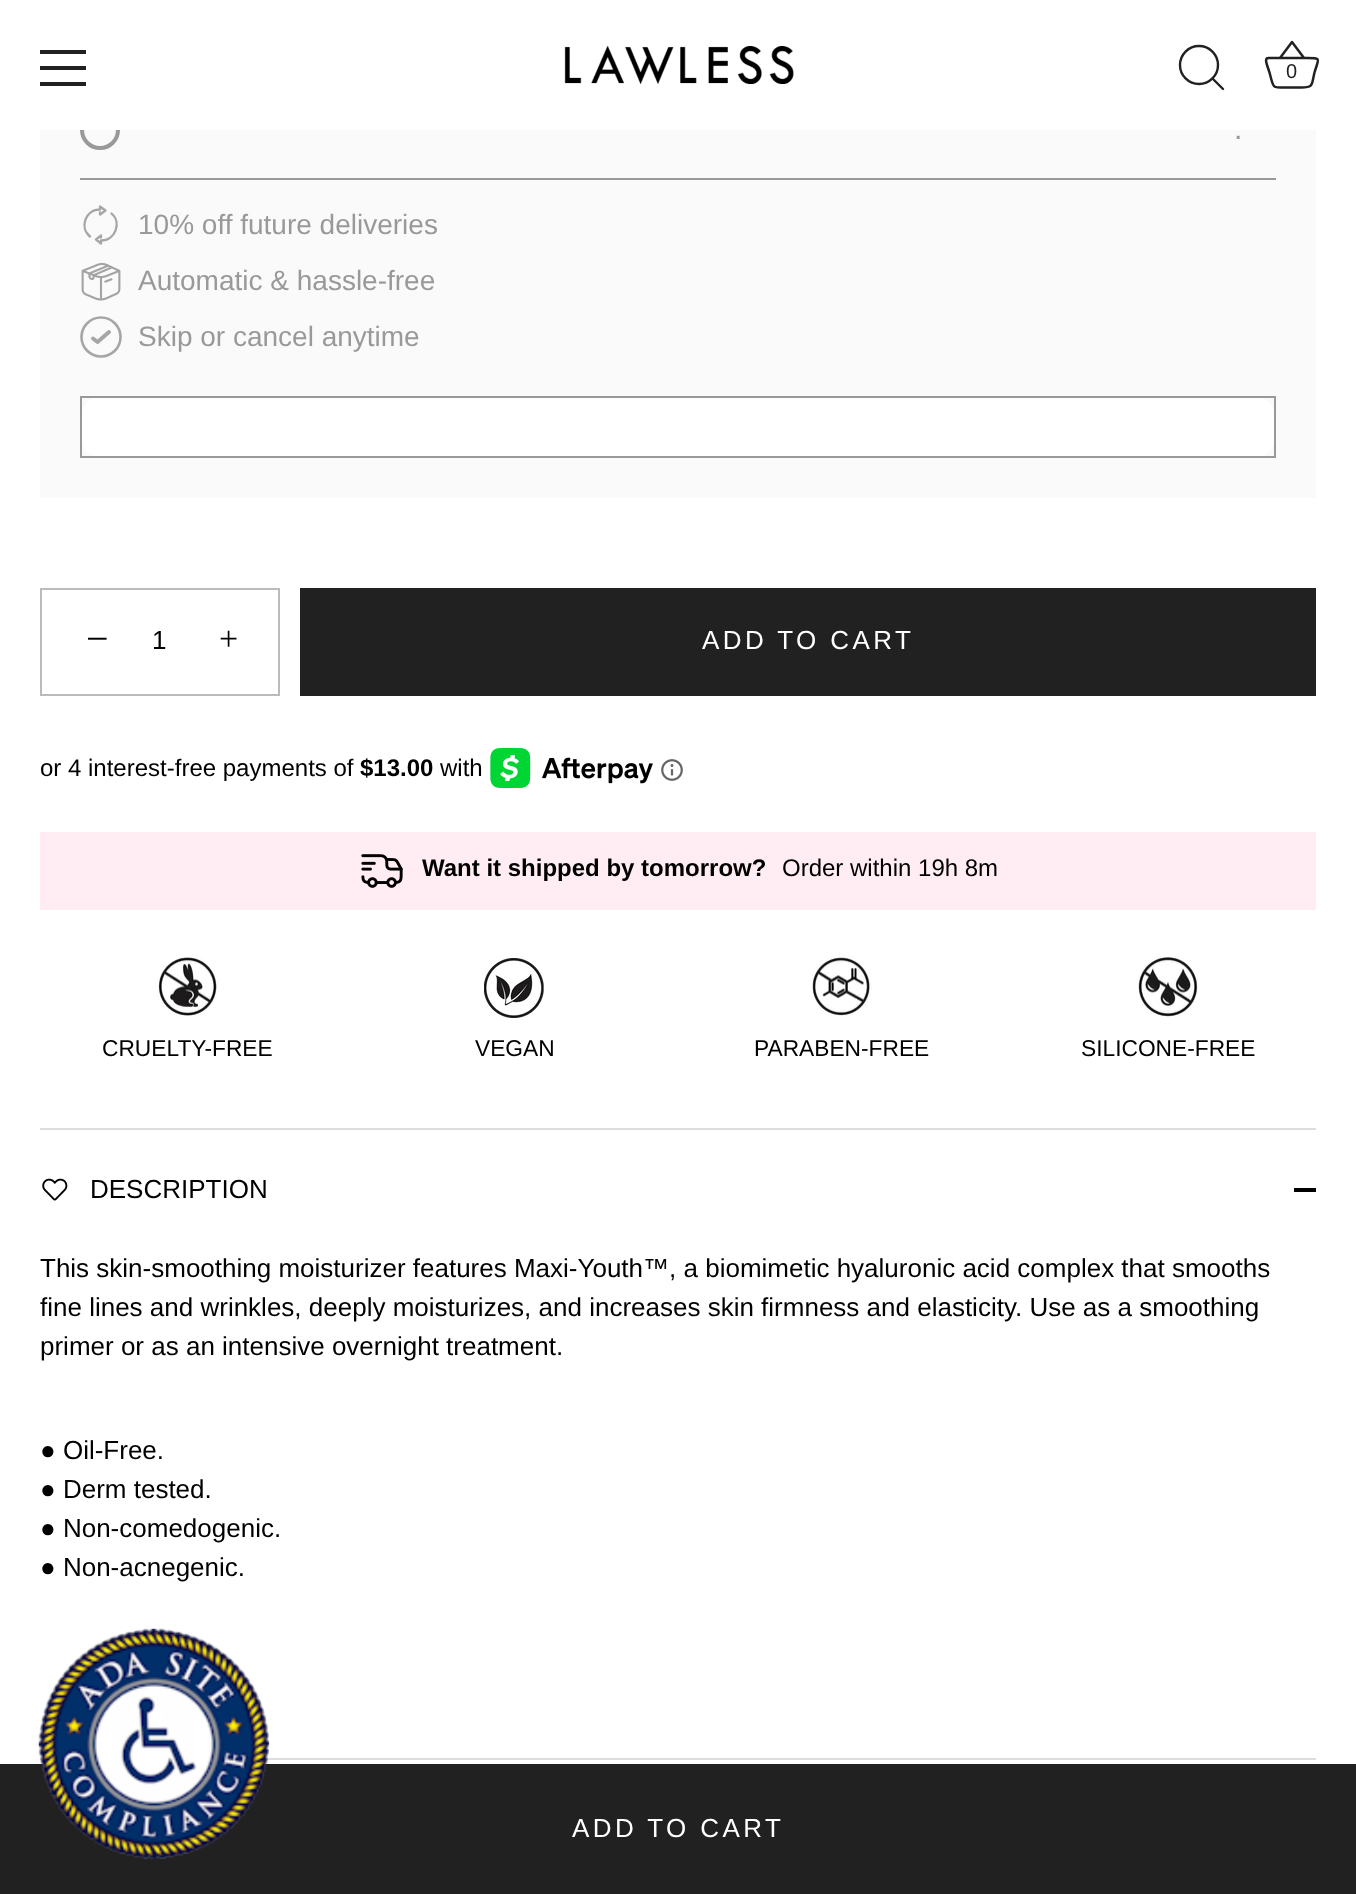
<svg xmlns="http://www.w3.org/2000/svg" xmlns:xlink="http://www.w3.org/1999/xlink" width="1356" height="1894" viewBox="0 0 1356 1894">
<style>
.cls-1{font:20px Liberation Sans;fill:#212121}
.cls-2{font:30px Liberation Sans;fill:#999999}
.cls-3{font:28px Liberation Sans;fill:#999999}
.cls-4{font:40px Liberation Serif;fill:#000000}
.cls-5{font:26px Liberation Sans;letter-spacing:1px;fill:#000000}
.cls-6{font:34px Liberation Serif;fill:#000000}
.cls-7{font:26px Liberation Sans;letter-spacing:3.4px;fill:#ffffff}
.cls-8{font:24px Liberation Sans;fill:#000000}
.cls-9{font:bold 24px Liberation Sans;fill:#000000}
.cls-10{font:22.75px Liberation Sans;fill:#000000}
.cls-11{font:26px Liberation Sans;fill:#000000}
</style>
<rect width="100%" height="100%" fill="#ffffff"/>
<rect fill="#fafafa" x="40" y="130" width="1276" height="368"/>
<circle fill="none" stroke="#999999" stroke-width="4" cx="100" cy="130" r="18"/>
<rect fill="#ffffff" x="80" y="110" width="40" height="20"/>
<rect fill="#212121" x="40" y="50" width="46" height="4"/>
<rect fill="#212121" x="40" y="66" width="46" height="4"/>
<rect fill="#212121" x="40" y="82" width="46" height="4"/>
<image xlink:href="image0.png" x="564" y="46" width="230" height="38"/>
<circle fill="none" stroke="#212121" stroke-width="2.4" cx="1199" cy="65" r="19"/>
<path fill="none" stroke="#212121" stroke-width="2.4" stroke-linecap="round" stroke-linejoin="round" d="M1223 89L1212.5 78.5"/>
<path fill="none" stroke="#212121" stroke-width="2.5" stroke-linejoin="round" d="M1268.5 58C1264.5 58 1266.5 63 1267 65L1269.5 72.5C1274 88.5 1271 87.5 1287 87.5H1301.5C1314 87.5 1311.5 84.5 1314.5 72.5C1318.5 58.5 1322 58 1307.5 58H1268.5M1280 58L1292 42L1304 58"/>
<rect fill="#999999" x="80" y="178" width="1196" height="2"/>
<path fill="none" stroke="#a6a6a6" stroke-width="2.3" stroke-linecap="round" stroke-linejoin="round" d="M100 212.5V214.5L105.5 210.5L100 206.5V209.5C85.5 209.5 79 227.5 90 236.5M101 237.5V235.5L96 239.5L101 243.5V240.5C115.5 240.5 122 222.5 111.5 213.5"/>
<image xlink:href="image1.png" x="81" y="262" width="40" height="39"/>
<circle fill="none" stroke="#a6a6a6" stroke-width="2.6" cx="101" cy="337" r="19.5"/>
<path fill="none" stroke="#a6a6a6" stroke-width="3.9" stroke-linecap="round" stroke-linejoin="round" d="M109 332L97.5 342L93 338.5"/>
<rect fill="none" stroke="#999999" stroke-width="2" x="81" y="397" width="1194" height="60"/>
<rect fill="#ffffff" x="82" y="398" width="1192" height="58" rx="16"/>
<rect fill="none" stroke="#bbbbbb" stroke-width="2" x="41" y="589" width="238" height="106"/>
<rect fill="#212121" x="300" y="588" width="1016" height="108"/>
<image xlink:href="image2.png" x="490" y="748" width="163" height="40"/>
<image xlink:href="image3.png" x="661" y="759" width="22" height="22"/>
<rect fill="#ffedf3" x="40" y="832" width="1276" height="78"/>
<image xlink:href="image4.png" x="361" y="854" width="42" height="34"/>
<image xlink:href="image5.png" x="158" y="957" width="60" height="60"/>
<image xlink:href="image6.png" x="484" y="958" width="60" height="60"/>
<image xlink:href="image7.png" x="812" y="956" width="60" height="61"/>
<image xlink:href="image8.png" x="1138" y="956" width="60" height="62"/>
<rect fill="#dddddd" x="40" y="1128" width="1276" height="2"/>
<rect fill="#dddddd" x="40" y="1758" width="1276" height="2"/>
<image xlink:href="image9.png" x="42" y="1178" width="26" height="23"/>
<rect fill="#000000" x="1294" y="1188" width="22" height="4"/>
<rect fill="#212121" x="0" y="1764" width="1356" height="130"/>
<image xlink:href="image10.png" x="38" y="1628" width="232" height="232"/>
<text class="cls-1" x="1286" y="78">0</text>
<text class="cls-2" x="1234" y="139">.</text>
<text class="cls-3" x="138" y="234">10% off future deliveries</text>
<text class="cls-3" x="138" y="290">Automatic &amp; hassle-free</text>
<text class="cls-3" x="138" y="346">Skip or cancel anytime</text>
<text class="cls-4" x="86" y="652">−</text>
<text class="cls-5" x="152" y="649">1</text>
<text class="cls-6" x="219" y="650">+</text>
<text class="cls-7" x="702" y="649">ADD TO CART</text>
<text class="cls-8" x="40" y="776">or 4 interest-free payments of</text>
<text class="cls-9" x="360" y="776">$13.00</text>
<text class="cls-8" x="440" y="776">with</text>
<text class="cls-9" x="422" y="876">Want it shipped by tomorrow?</text>
<text class="cls-8" x="782" y="876">Order within 19h 8m</text>
<text class="cls-10" x="102" y="1056">CRUELTY-FREE</text>
<text class="cls-10" x="475" y="1056">VEGAN</text>
<text class="cls-10" x="754" y="1056">PARABEN-FREE</text>
<text class="cls-10" x="1081" y="1056">SILICONE-FREE</text>
<text class="cls-11" x="90" y="1198">DESCRIPTION</text>
<text class="cls-11"><tspan x="40" y="1277">This skin-smoothing moisturizer features Maxi-Youth™, a biomimetic hyaluronic acid complex that smooths</tspan><tspan x="40" y="1316">fine lines and wrinkles, deeply moisturizes, and increases skin firmness and elasticity. Use as a smoothing</tspan><tspan x="40" y="1355">primer or as an intensive overnight treatment.</tspan></text>
<text class="cls-11"><tspan x="40" y="1459">● Oil-Free.</tspan><tspan x="40" y="1498">● Derm tested.</tspan><tspan x="40" y="1537">● Non-comedogenic.</tspan><tspan x="40" y="1576">● Non-acnegenic.</tspan></text>
<text class="cls-7" x="572" y="1837">ADD TO CART</text>
</svg>
